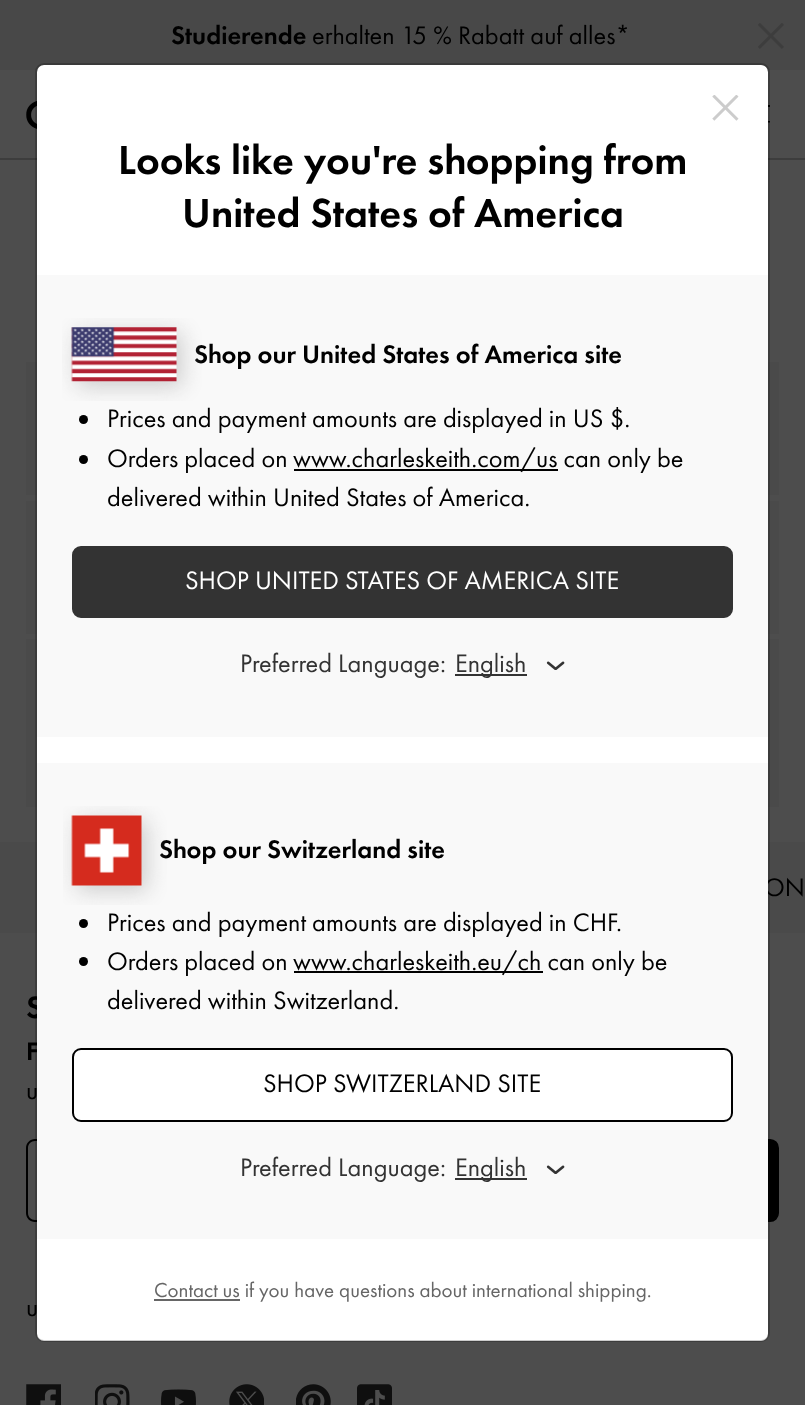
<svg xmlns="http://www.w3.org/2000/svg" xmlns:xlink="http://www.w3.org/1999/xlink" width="805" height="1405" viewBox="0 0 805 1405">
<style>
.cls-1{font:500 26.25px Futura PT;fill:#000000}
.cls-2{font:26.25px Futura PT;fill:#000000}
.cls-3{font:500 32px Futura PT;fill:#000000}
.cls-4{font:500 42px Futura PT;fill:#000000}
.cls-5{font:26.25px Futura PT;fill:#ffffff}
.cls-6{font:26.25px Futura PT;fill:#333333}
.cls-7{font:21px Futura PT;fill:#666666}
</style>
<rect width="100%" height="100%" fill="#4d4d4d"/>
<rect fill="#3d3d3d" x="0" y="158" width="805" height="2"/>
<rect fill="#484848" x="0" y="0" width="805" height="70"/>
<image xlink:href="image0.png" x="758" y="23" width="26" height="26"/>
<image xlink:href="image1.png" x="26" y="101" width="11" height="28"/>
<path fill="#000000" d="M735 122.5V121H770V122.5ZM735 107V105H770V107Z"/>
<rect fill="#4a4a4a" x="26" y="362" width="753" height="133"/>
<rect fill="#4a4a4a" x="26" y="501" width="753" height="133"/>
<rect fill="#4a4a4a" x="26" y="639" width="753" height="168"/>
<rect fill="#4a4a4a" x="0" y="842" width="805" height="91"/>
<path fill="#000000" fill-rule="evenodd" d="M35 1139H604V1222H35C30 1222 26 1218 26 1213V1148C26 1143 30 1139 35 1139ZM35 1141H604V1220H35C31 1220 28 1217 28 1213V1148C28 1144 31 1141 35 1141Z"/>
<path fill="#000000" stroke="#000000" stroke-width="2" d="M605 1140H770C774.5 1140 778 1143.5 778 1148V1213C778 1217.5 774.5 1221 770 1221H605Z"/>
<image xlink:href="image2.png" x="26" y="1384" width="35" height="21"/>
<image xlink:href="image3.png" x="95" y="1384" width="35" height="21"/>
<image xlink:href="image4.png" x="161" y="1389" width="35" height="16"/>
<image xlink:href="image5.png" x="229" y="1384" width="35" height="21"/>
<image xlink:href="image6.png" x="296" y="1384" width="35" height="21"/>
<image xlink:href="image7.png" x="357" y="1384" width="35" height="21"/>
<text class="cls-1" x="171" y="44">Studierende</text>
<text class="cls-2" x="312" y="44">erhalten 15 % Rabatt auf alles*</text>
<text class="cls-2" x="764" y="896">ON</text>
<text class="cls-3" x="26" y="1018">S</text>
<text class="cls-1" x="26" y="1060">F</text>
<text class="cls-2" x="26" y="1099">u</text>
<text class="cls-2" x="26" y="1316">u</text>
<rect fill="#ffffff" x="37" y="65" width="731" height="1276" rx="7"/>
<rect fill="none" stroke="#000000" stroke-opacity="0.2" stroke-width="2" x="36" y="64" width="733" height="1277" rx="8"/>
<image xlink:href="image8.png" x="712" y="95" width="27" height="26"/>
<text class="cls-4" x="118" y="174">Looks like you're shopping from</text>
<text class="cls-4" x="182" y="227">United States of America</text>
<rect fill="#f9f9f9" x="37" y="275" width="731" height="462"/>
<text class="cls-1" x="194" y="363">Shop our United States of America site</text>
<image xlink:href="image9.png" x="62" y="318" width="140" height="83"/>
<circle fill="#000000" cx="83.5" cy="419.5" r="4.5"/>
<text class="cls-2" x="107" y="427">Prices and payment amounts are displayed in US $.</text>
<circle fill="#000000" cx="83.5" cy="459.5" r="4.5"/>
<text class="cls-2" x="107" y="467">Orders placed on</text>
<rect fill="#000000" x="294" y="469" width="264" height="2"/>
<text class="cls-2" x="293" y="467">www.charleskeith.com/us can only be</text>
<text class="cls-2" x="107" y="506">delivered within United States of America.</text>
<rect fill="#333333" stroke="#333333" stroke-width="2" x="73" y="547" width="659" height="70" rx="8"/>
<text class="cls-5" x="185" y="589">SHOP UNITED STATES OF AMERICA SITE</text>
<text class="cls-6" x="240" y="672">Preferred Language:</text>
<image xlink:href="image10.png" x="546" y="661" width="19" height="9"/>
<rect fill="#333333" x="455" y="674" width="72" height="2"/>
<text class="cls-6" x="455" y="672">English</text>
<rect fill="#f9f9f9" x="37" y="763" width="731" height="476"/>
<text class="cls-1" x="159" y="858">Shop our Switzerland site</text>
<image xlink:href="image11.png" x="63" y="806" width="104" height="99"/>
<circle fill="#000000" cx="83.5" cy="923.5" r="4.5"/>
<text class="cls-2" x="107" y="931">Prices and payment amounts are displayed in CHF</text>
<text class="cls-2" x="616" y="931">.</text>
<circle fill="#000000" cx="83.5" cy="961.5" r="4.5"/>
<text class="cls-2" x="107" y="970">Orders placed on</text>
<rect fill="#000000" x="294" y="971" width="249" height="2"/>
<text class="cls-2" x="293" y="970">www.charleskeith.eu/ch can only be</text>
<text class="cls-2" x="107" y="1009">delivered within Switzerland.</text>
<rect fill="#ffffff" stroke="#000000" stroke-width="2" x="73" y="1049" width="659" height="72" rx="8"/>
<text class="cls-2" x="263" y="1092">SHOP SWITZERLAND SITE</text>
<text class="cls-6" x="240" y="1176">Preferred Language:</text>
<image xlink:href="image10.png" x="546" y="1165" width="19" height="9"/>
<rect fill="#333333" x="455" y="1178" width="72" height="2"/>
<text class="cls-6" x="455" y="1176">English</text>
<rect fill="#666666" x="154" y="1299" width="86" height="2"/>
<text class="cls-7" x="154" y="1297">Contact us if you have questions about international shipping.</text>
</svg>
